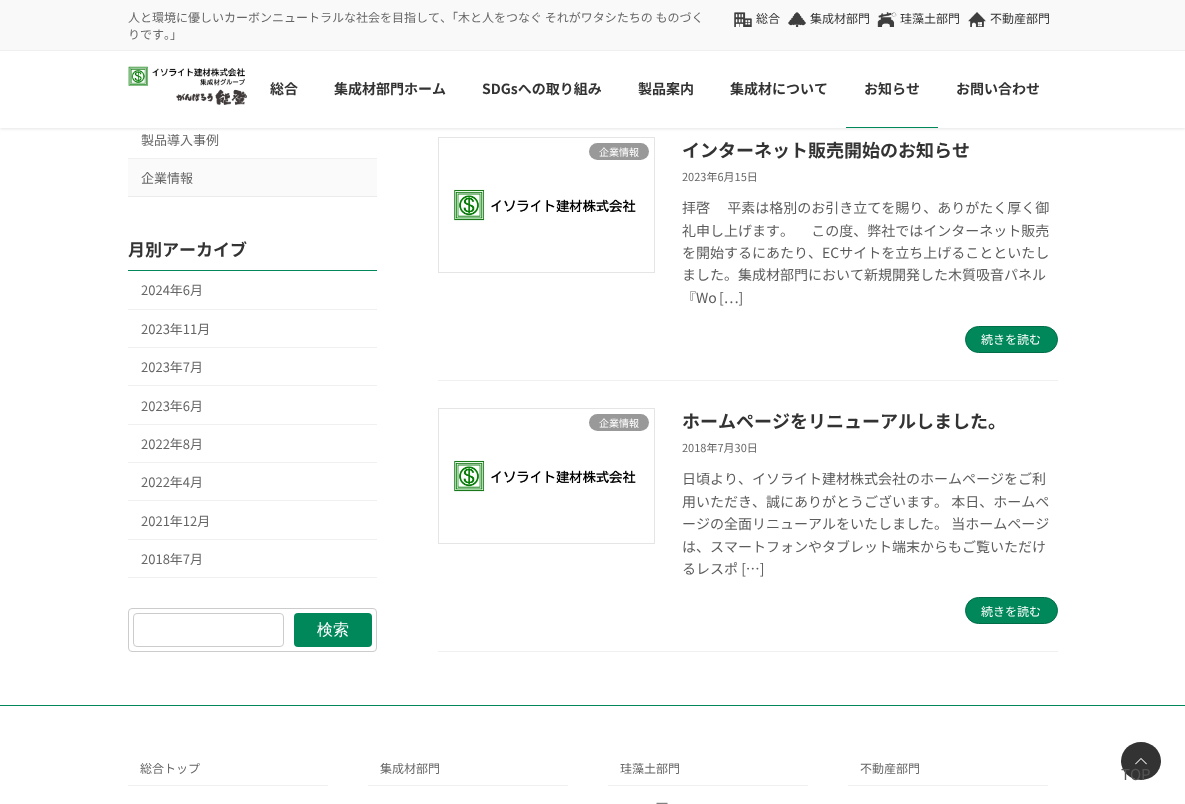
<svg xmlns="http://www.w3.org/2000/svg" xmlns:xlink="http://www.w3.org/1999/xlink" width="1185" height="804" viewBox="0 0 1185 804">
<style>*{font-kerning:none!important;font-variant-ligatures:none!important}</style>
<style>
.cls-1{font:12px Noto Sans JP;fill:#666666}
.cls-2{font:12px Noto Sans JP;fill:#333333}
.cls-3{font:bold 14px Noto Sans JP;fill:#333333}
.cls-4{font:13px Noto Sans JP;fill:#666666}
.cls-5{font:bold 17px Noto Sans JP;fill:#333333}
.cls-6{font:500 16px WenQuanYi Zen Hei;fill:#ffffff}
.cls-7{font:10px Noto Sans JP;fill:#ffffff}
.cls-8{font:bold 18px Noto Sans JP;fill:#333333}
.cls-9{font:11px Noto Sans JP;fill:#666666}
.cls-10{font:14px Noto Sans JP;fill:#5c5c5c}
.cls-11{font:12px Noto Sans JP;fill:#ffffff}
.cls-12{font:15px Noto Sans JP;fill:#545454}
</style>
<rect width="100%" height="100%" fill="#ffffff"/>
<rect fill="#000000" fill-opacity="0.1" filter="blur(1.5px)" x="0" y="1" width="1185" height="128"/>
<rect fill="#ffffff" x="0" y="51" width="1185" height="77"/>
<rect fill="#f9f9f9" x="0" y="0" width="1185" height="50"/>
<rect fill="#efefef" x="0" y="50" width="1185" height="1"/>
<image xlink:href="image0.png" x="734" y="12" width="18" height="15"/>
<image xlink:href="image1.png" x="788" y="12" width="18" height="15"/>
<image xlink:href="image2.png" x="877" y="12" width="20" height="15"/>
<image xlink:href="image3.png" x="968" y="12" width="18" height="15"/>
<image xlink:href="image4.png" x="128" y="66" width="119" height="39"/>
<rect fill="#00885a" x="846" y="127" width="92" height="1"/>
<rect fill="#f0f0f0" x="128" y="158" width="249" height="1"/>
<rect fill="#fafafa" x="128" y="159" width="249" height="37"/>
<rect fill="#ebebeb" x="128" y="196" width="249" height="1"/>
<rect fill="#00885a" x="128" y="270" width="249" height="1"/>
<rect fill="#f0f0f0" x="128" y="309" width="249" height="1"/>
<rect fill="#f0f0f0" x="128" y="347" width="249" height="1"/>
<rect fill="#f0f0f0" x="128" y="385" width="249" height="1"/>
<rect fill="#f0f0f0" x="128" y="424" width="249" height="1"/>
<rect fill="#f0f0f0" x="128" y="462" width="249" height="1"/>
<rect fill="#f0f0f0" x="128" y="500" width="249" height="1"/>
<rect fill="#f0f0f0" x="128" y="539" width="249" height="1"/>
<rect fill="#f0f0f0" x="128" y="577" width="249" height="1"/>
<rect fill="none" stroke="#cccccc" x="128.5" y="608.5" width="248" height="43" rx="3.5"/>
<rect fill="none" stroke="#cccccc" x="133.5" y="613.5" width="150" height="33" rx="3.5"/>
<rect fill="#00885a" x="294" y="613" width="78" height="34" rx="4"/>
<rect fill="#f0f0f0" x="438" y="380" width="620" height="1"/>
<image xlink:href="image5.png" x="453" y="189" width="183" height="32"/>
<rect fill="none" stroke="#e5e5e5" x="438.5" y="137.5" width="216" height="135"/>
<rect fill="#999999" x="589" y="143" width="60" height="17" rx="8.5"/>
<rect fill="#00885a" stroke="#006d48" x="965.5" y="326.5" width="92" height="26" rx="13"/>
<rect fill="#f0f0f0" x="438" y="651" width="620" height="1"/>
<image xlink:href="image6.png" x="453" y="460" width="183" height="32"/>
<rect fill="none" stroke="#e5e5e5" x="438.5" y="408.5" width="216" height="135"/>
<rect fill="#999999" x="589" y="414" width="60" height="17" rx="8.5"/>
<rect fill="#00885a" stroke="#006d48" x="965.5" y="597.5" width="92" height="26" rx="13"/>
<rect fill="#00885a" x="0" y="705" width="1185" height="1"/>
<rect fill="#f0f0f0" x="128" y="785" width="200" height="1"/>
<rect fill="#f0f0f0" x="368" y="785" width="200" height="1"/>
<rect fill="#f0f0f0" x="608" y="785" width="200" height="1"/>
<rect fill="#f0f0f0" x="848" y="785" width="200" height="1"/>
<ellipse fill="#333333" cx="1141" cy="761" rx="20" ry="19"/>
<image xlink:href="image7.png" x="1135" y="758" width="12" height="7"/>
<text class="cls-1"><tspan x="128" y="22">人と環境に優しいカーボンニュートラルな社会を目指して、「木と人をつなぐ それがワタシたちの ものづく</tspan><tspan x="128" y="39">りです。」</tspan></text>
<text class="cls-2" x="756" y="23">総合</text>
<text class="cls-2" x="810" y="23">集成材部門</text>
<text class="cls-2" x="900" y="23">珪藻土部門</text>
<text class="cls-2" x="990" y="23">不動産部門</text>
<text class="cls-3" x="270" y="94">総合</text>
<text class="cls-3" x="334" y="94">集成材部門ホーム</text>
<text class="cls-3" x="482" y="94">SDGsへの取り組み</text>
<text class="cls-3" x="638" y="94">製品案内</text>
<text class="cls-3" x="730" y="94">集成材について</text>
<text class="cls-3" x="864" y="94">お知らせ</text>
<text class="cls-3" x="956" y="94">お問い合わせ</text>
<text class="cls-4" x="141" y="145">製品導入事例</text>
<text class="cls-4" x="141" y="183">企業情報</text>
<text class="cls-5" x="128" y="256">月別アーカイブ</text>
<text class="cls-4" x="141" y="295">2024年6月</text>
<text class="cls-4" x="141" y="334">2023年11月</text>
<text class="cls-4" x="141" y="372">2023年7月</text>
<text class="cls-4" x="141" y="411">2023年6月</text>
<text class="cls-4" x="141" y="449">2022年8月</text>
<text class="cls-4" x="141" y="487">2022年4月</text>
<text class="cls-4" x="141" y="526">2021年12月</text>
<text class="cls-4" x="141" y="564">2018年7月</text>
<text class="cls-6" x="317" y="635">検索</text>
<text class="cls-7" x="599" y="156">企業情報</text>
<text class="cls-8" x="682" y="157">インターネット販売開始のお知らせ</text>
<text class="cls-9" x="682" y="181">2023年6月15日</text>
<text class="cls-10"><tspan x="682" y="213">拝啓 　平素は格別のお引き立てを賜り、ありがたく厚く御</tspan><tspan x="682" y="236">礼申し上げます。 　この度、弊社ではインターネット販売</tspan><tspan x="682" y="258">を開始するにあたり、ECサイトを立ち上げることといたし</tspan><tspan x="682" y="280">ました。集成材部門において新規開発した木質吸音パネル</tspan><tspan x="682" y="303" word-spacing="-1">『Wo […]</tspan></text>
<text class="cls-11" x="981" y="344">続きを読む</text>
<text class="cls-7" x="599" y="427">企業情報</text>
<text class="cls-8" x="682" y="428">ホームページをリニューアルしました。</text>
<text class="cls-9" x="682" y="452">2018年7月30日</text>
<text class="cls-10"><tspan x="682" y="484">日頃より、イソライト建材株式会社のホームページをご利</tspan><tspan x="682" y="507">用いただき、誠にありがとうございます。 本日、ホームペ</tspan><tspan x="682" y="529">ージの全面リニューアルをいたしました。 当ホームページ</tspan><tspan x="682" y="552">は、スマートフォンやタブレット端末からもご覧いただけ</tspan><tspan x="682" y="574">るレスポ […]</tspan></text>
<text class="cls-11" x="981" y="616">続きを読む</text>
<text class="cls-1" x="140" y="773">総合トップ</text>
<text class="cls-1" x="380" y="773">集成材部門</text>
<text class="cls-1" x="620" y="773">珪藻土部門</text>
<text class="cls-1" x="656" y="808">一</text>
<text class="cls-1" x="860" y="773">不動産部門</text>
<text class="cls-12" x="1121" y="780">TOP</text>
</svg>
